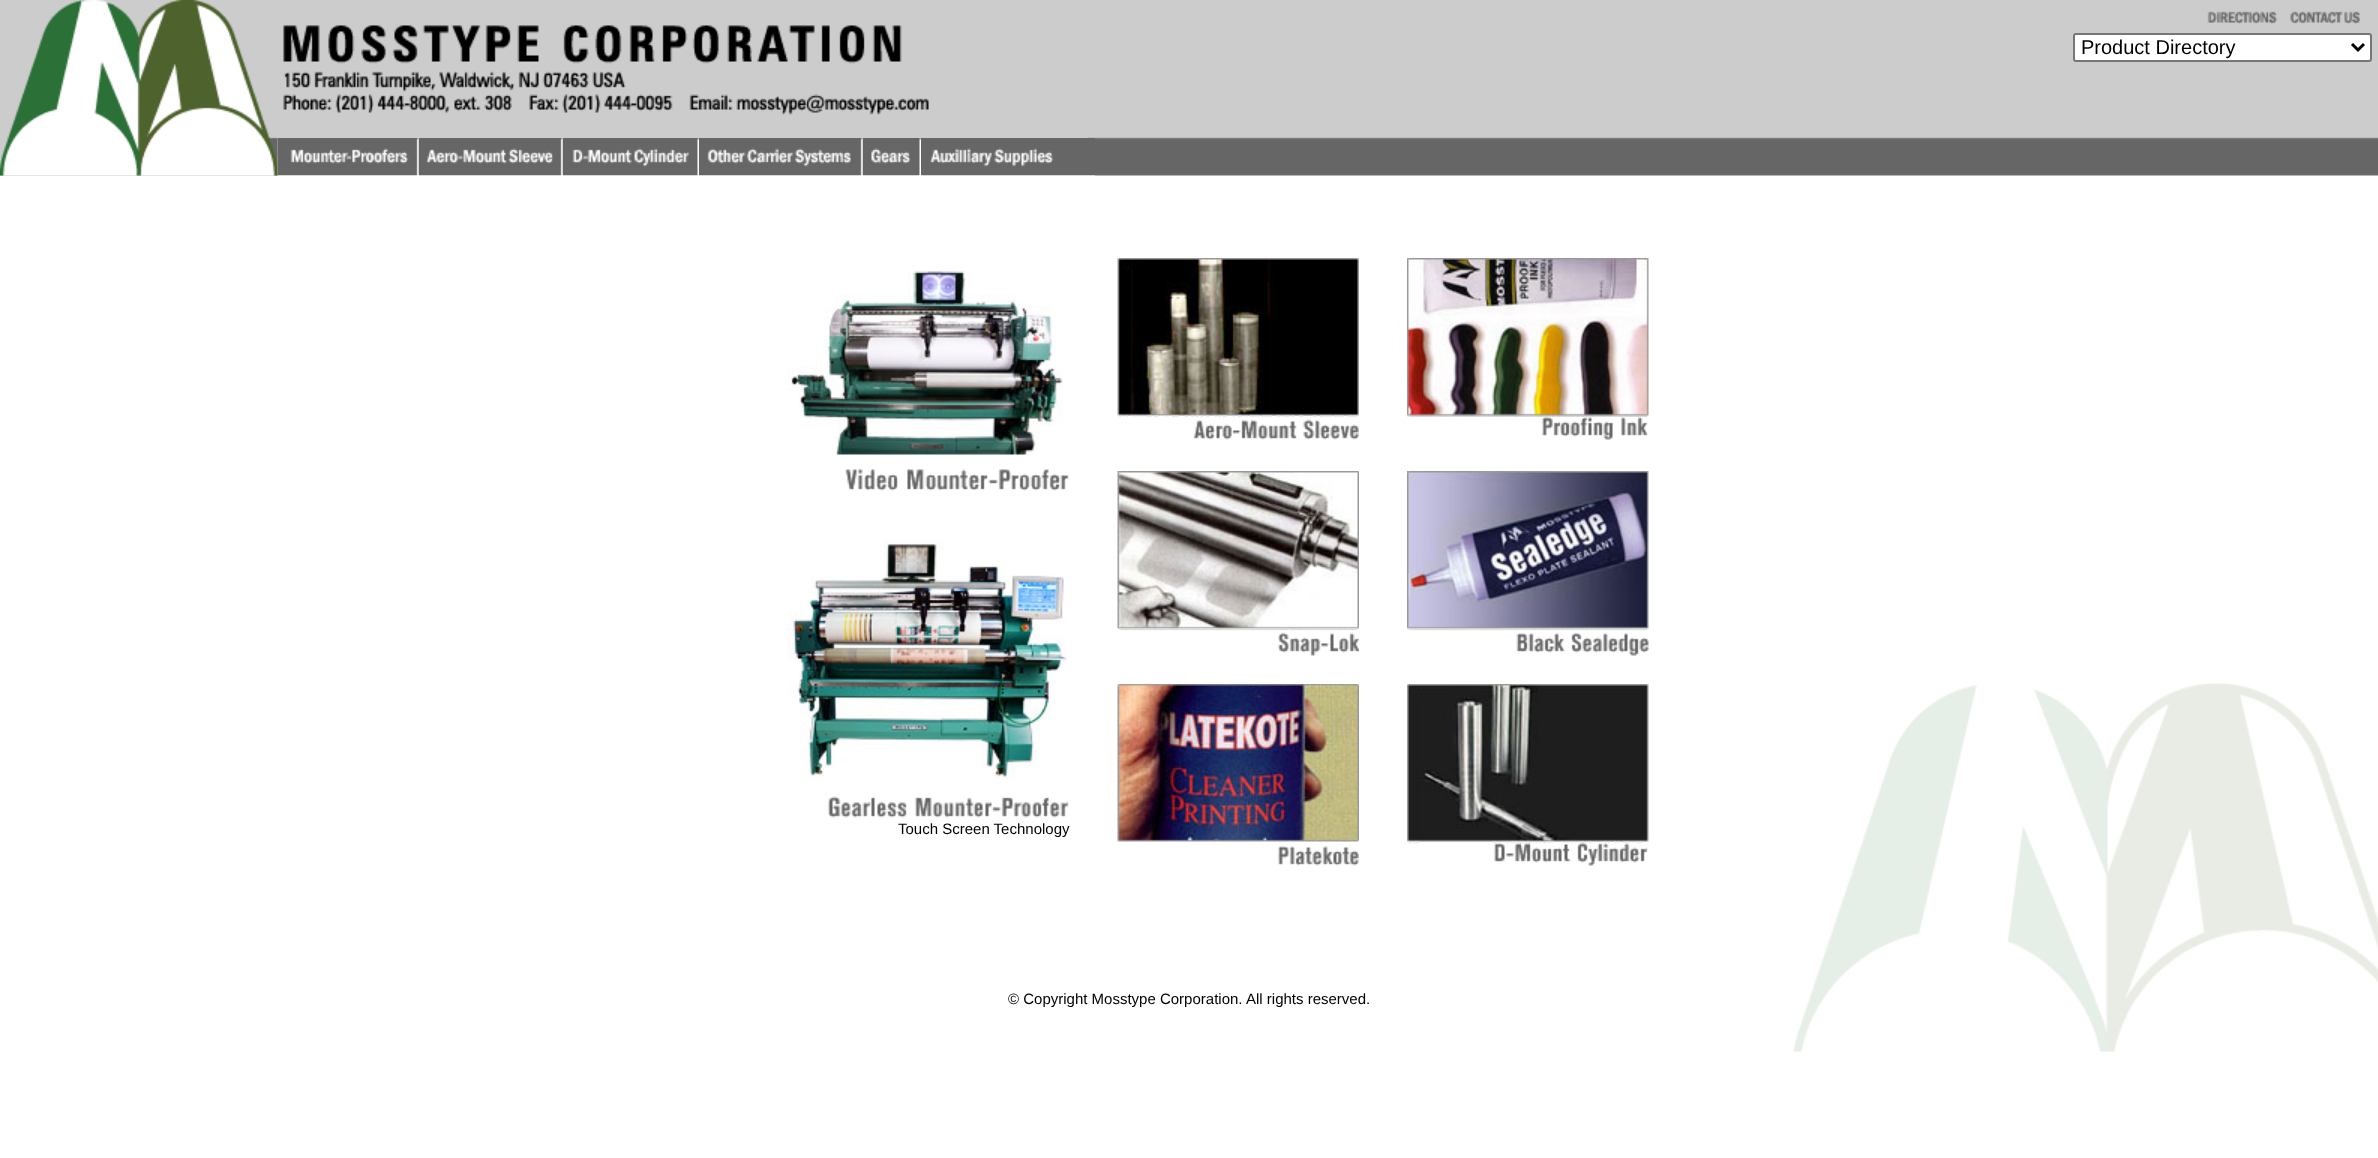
<svg xmlns="http://www.w3.org/2000/svg" xmlns:xlink="http://www.w3.org/1999/xlink" width="2378" height="1158" viewBox="0 0 2378 1158">
<style>
.cls-1{font:20px Liberation Sans;fill:#000000}
.cls-2{font:15px Liberation Sans;fill:#000000}
</style>
<rect width="100%" height="100%" fill="#ffffff"/>
<image xlink:href="image0.png" x="1793" y="683" width="585" height="369"/>
<image xlink:href="image1.png" x="1088" y="0" width="1290" height="176"/>
<rect fill="#cccccc" x="0" y="0" width="1088" height="176"/>
<image xlink:href="image2.png" x="0" y="0" width="278" height="176"/>
<image xlink:href="image3.png" x="283" y="25" width="646" height="90"/>
<image xlink:href="image4.png" x="2207" y="11" width="71" height="13"/>
<image xlink:href="image5.png" x="2290" y="11" width="70" height="14"/>
<rect fill="#ffffff" stroke="#767676" stroke-width="2" x="2074" y="34" width="297" height="27" rx="2"/>
<path fill="none" stroke="#000000" stroke-width="3" d="M2352 44L2358 50L2364 44"/>
<rect fill="#ffffff" x="278" y="138" width="817" height="38"/>
<image xlink:href="image6.png" x="277" y="138" width="142" height="38"/>
<image xlink:href="image7.png" x="418" y="138" width="145" height="38"/>
<image xlink:href="image8.png" x="562" y="138" width="137" height="38"/>
<image xlink:href="image9.png" x="699" y="138" width="164" height="38"/>
<image xlink:href="image10.png" x="862" y="138" width="59" height="38"/>
<image xlink:href="image11.png" x="921" y="138" width="174" height="38"/>
<image xlink:href="image12.png" x="787" y="270" width="276" height="185"/>
<image xlink:href="image13.png" x="845" y="469" width="224" height="22"/>
<image xlink:href="image14.png" x="787" y="540" width="282" height="240"/>
<image xlink:href="image15.png" x="825" y="793" width="244" height="25"/>
<image xlink:href="image16.png" x="1117" y="258" width="242" height="158"/>
<image xlink:href="image17.png" x="1119" y="415" width="240" height="25"/>
<image xlink:href="image18.png" x="1117" y="471" width="242" height="158"/>
<image xlink:href="image19.png" x="1119" y="628" width="240" height="28"/>
<image xlink:href="image20.png" x="1117" y="684" width="242" height="158"/>
<image xlink:href="image21.png" x="1277" y="845" width="82" height="21"/>
<image xlink:href="image22.png" x="1407" y="258" width="242" height="159"/>
<image xlink:href="image23.png" x="1541" y="417" width="107" height="23"/>
<image xlink:href="image24.png" x="1407" y="471" width="242" height="158"/>
<image xlink:href="image25.png" x="1408" y="628" width="241" height="28"/>
<image xlink:href="image26.png" x="1407" y="684" width="242" height="158"/>
<image xlink:href="image27.png" x="1408" y="841" width="240" height="25"/>
<text class="cls-1" x="2081" y="54">Product Directory</text>
<text class="cls-2" x="898" y="834">Touch Screen Technology</text>
<text class="cls-2" x="1008" y="1004">© Copyright Mosstype Corporation.</text>
<text class="cls-2" x="1246" y="1004">All rights reserved.</text>
</svg>
